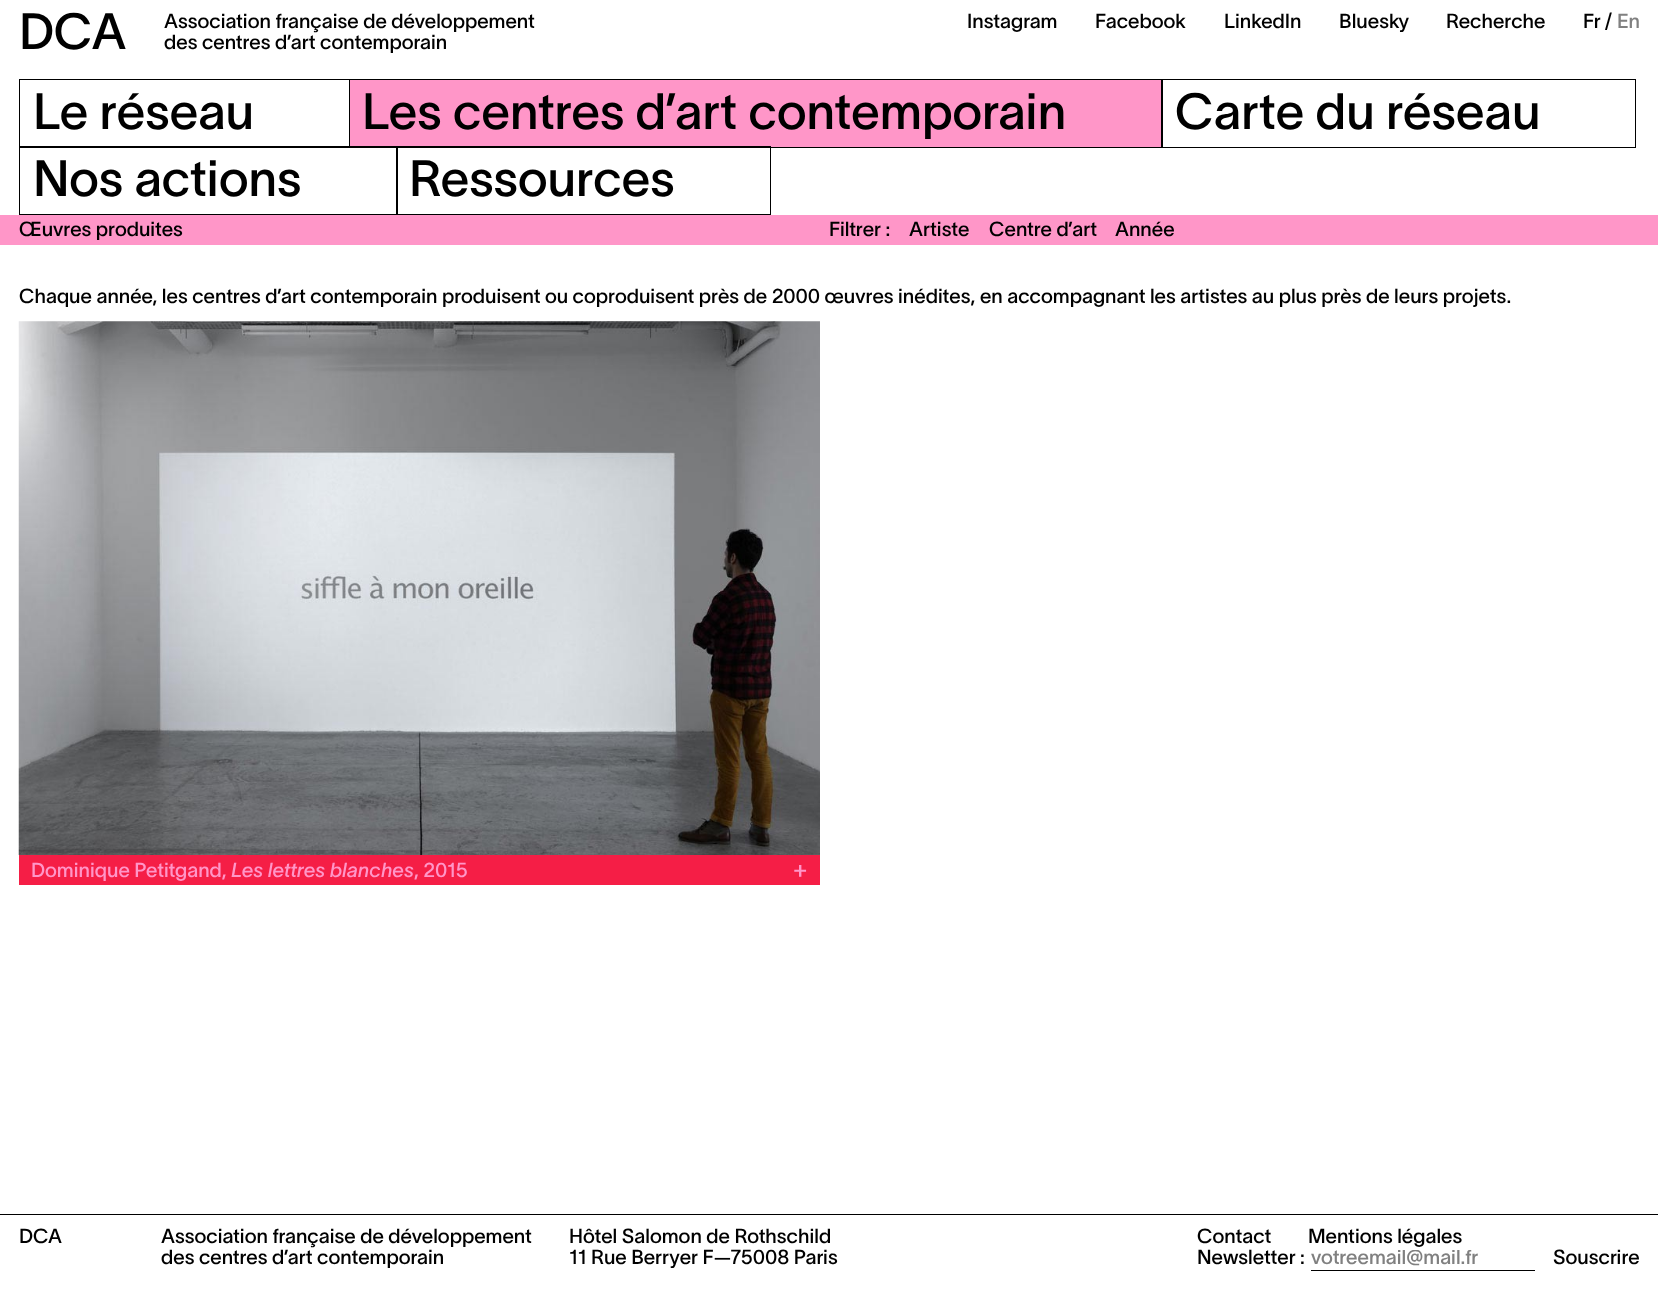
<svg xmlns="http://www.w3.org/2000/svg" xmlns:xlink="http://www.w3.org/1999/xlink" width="1658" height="1289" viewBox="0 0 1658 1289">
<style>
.cls-1{font:50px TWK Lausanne;fill:#000000}
.cls-2{font:20px TWK Lausanne;fill:#000000}
.cls-3{font:20px TWK Lausanne;fill:#808080}
.cls-4{font:20px TWK Lausanne;fill:#ff96c8}
.cls-5{font:italic 20px TWK Lausanne;fill:#ff96c8}
.cls-6{font:24px TWK Lausanne;fill:#ff96c8}
</style>
<defs>
<clipPath id="clip1"><rect x="1311" y="1250" width="224" height="18"/></clipPath>
</defs>
<rect width="100%" height="100%" fill="#ffffff"/>
<rect fill="none" stroke="#000000" x="19.5" y="79.5" width="330" height="68"/>
<rect fill="#ff96c8" x="350" y="80" width="811" height="67"/>
<rect fill="none" stroke="#000000" x="349.5" y="79.5" width="813" height="68"/>
<rect fill="none" stroke="#000000" x="1161.5" y="79.5" width="474" height="68"/>
<rect fill="none" stroke="#000000" x="19.5" y="146.5" width="378" height="68"/>
<rect fill="none" stroke="#000000" x="396.5" y="146.5" width="374" height="68"/>
<rect fill="#ff96c8" x="0" y="215" width="1658" height="30"/>
<image xlink:href="image0.png" x="18" y="321" width="802" height="534"/>
<rect fill="#f51e46" x="19" y="855" width="801" height="30"/>
<rect fill="#000000" x="0" y="1214" width="1658" height="1"/>
<rect fill="#000000" x="1311" y="1270" width="224" height="1"/>
<text class="cls-1" x="19" y="49">DCA</text>
<text class="cls-2"><tspan x="164" y="28">Association française de développement</tspan><tspan x="164" y="49">des centres d’art contemporain</tspan></text>
<text class="cls-2" x="967" y="28">Instagram</text>
<text class="cls-2" x="1095" y="28">Facebook</text>
<text class="cls-2" x="1224" y="28">LinkedIn</text>
<text class="cls-2" x="1339" y="28">Bluesky</text>
<text class="cls-2" x="1446" y="28">Recherche</text>
<text class="cls-2" x="1583" y="28">Fr /</text>
<text class="cls-3" x="1617" y="28">En</text>
<text class="cls-1" x="33" y="129">Le réseau</text>
<text class="cls-1" x="362" y="129">Les centres d’art contemporain</text>
<text class="cls-1" x="1175" y="129">Carte du réseau</text>
<text class="cls-1" x="33" y="196">Nos actions</text>
<text class="cls-1" x="409" y="196">Ressources</text>
<text class="cls-2" x="19" y="236">Œuvres produites</text>
<text class="cls-2" x="829" y="236">Filtrer :</text>
<text class="cls-2" x="909" y="236">Artiste</text>
<text class="cls-2" x="989" y="236">Centre d’art</text>
<text class="cls-2" x="1115" y="236">Année</text>
<text class="cls-2" x="19" y="303">Chaque année, les centres d’art contemporain produisent ou coproduisent près de 2000 œuvres inédites, en accompagnant les artistes au plus près de leurs projets.</text>
<text class="cls-4" x="31" y="877">Dominique Petitgand,</text>
<text class="cls-5" x="231" y="877">Les lettres blanches</text>
<text class="cls-4" x="414" y="877">, 2015</text>
<text class="cls-6" x="793" y="877">+</text>
<text class="cls-2" x="19" y="1243">DCA</text>
<text class="cls-2"><tspan x="161" y="1243">Association française de développement</tspan><tspan x="161" y="1264">des centres d’art contemporain</tspan></text>
<text class="cls-2"><tspan x="569" y="1243">Hôtel Salomon de Rothschild</tspan><tspan x="569" y="1264">11 Rue Berryer F—75008 Paris</tspan></text>
<text class="cls-2" x="1197" y="1243">Contact</text>
<text class="cls-2" x="1308" y="1243">Mentions légales</text>
<text class="cls-2" x="1197" y="1264">Newsletter :</text>
<g clip-path="url(#clip1)">
<text class="cls-3" x="1311" y="1264">votreemail@mail.fr</text>
</g>
<text class="cls-2" x="1553" y="1264">Souscrire</text>
</svg>
